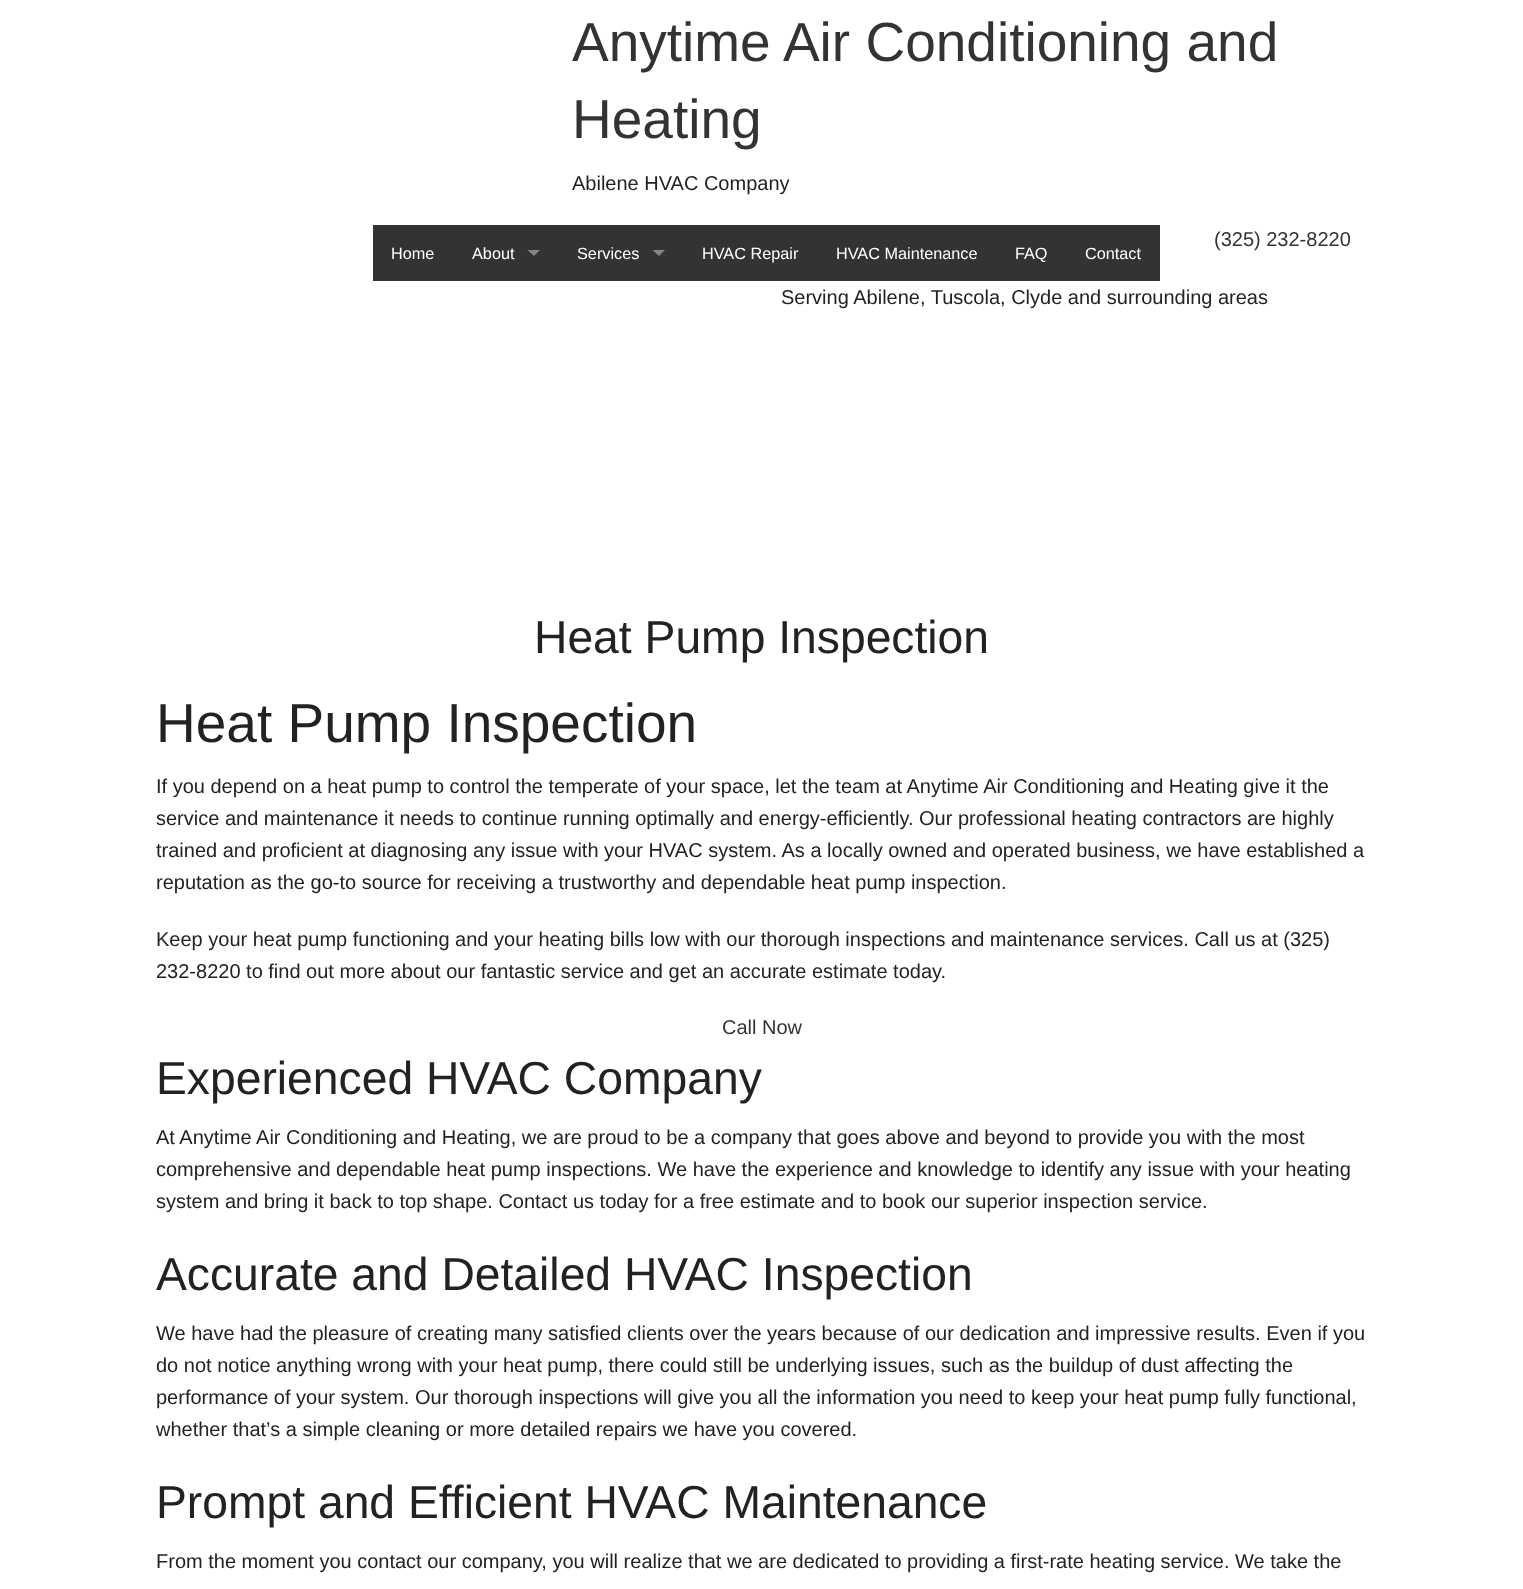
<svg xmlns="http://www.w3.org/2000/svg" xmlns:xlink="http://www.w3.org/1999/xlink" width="1523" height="1589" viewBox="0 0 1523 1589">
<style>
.cls-1{font:55px Liberation Sans;fill:#333333}
.cls-2{font:20px Liberation Sans;fill:#222222}
.cls-3{font:20px Liberation Sans;fill:#333333}
.cls-4{font:16.25px Liberation Sans;fill:#ffffff}
.cls-5{font:46.25px Liberation Sans;fill:#222222}
.cls-6{font:55px Liberation Sans;fill:#222222}
</style>
<rect width="100%" height="100%" fill="#ffffff"/>
<rect fill="#333333" x="373" y="225" width="787" height="56"/>
<path fill="#858585" d="M527.5 250H540L534 256Z"/>
<path fill="#858585" d="M652.5 250H665L659 256Z"/>
<text class="cls-1"><tspan x="572" y="61">Anytime Air Conditioning and</tspan><tspan x="572" y="138">Heating</tspan></text>
<text class="cls-2" x="572" y="190">Abilene HVAC Company</text>
<text class="cls-3" x="1214" y="246">(325) 232-8220</text>
<text class="cls-4" x="391" y="259">Home</text>
<text class="cls-4" x="472" y="259">About</text>
<text class="cls-4" x="577" y="259">Services</text>
<text class="cls-4" x="702" y="259">HVAC Repair</text>
<text class="cls-4" x="836" y="259">HVAC Maintenance</text>
<text class="cls-4" x="1015" y="259">FAQ</text>
<text class="cls-4" x="1085" y="259">Contact</text>
<text class="cls-2" x="781" y="304">Serving Abilene, Tuscola, Clyde and surrounding areas</text>
<text class="cls-5" x="534" y="653">Heat Pump Inspection</text>
<text class="cls-6" x="156" y="742">Heat Pump Inspection</text>
<text class="cls-2"><tspan x="156" y="793">If you depend on a heat pump to control the temperate of your space, let the team at Anytime Air Conditioning and Heating give it the</tspan><tspan x="156" y="825">service and maintenance it needs to continue running optimally and energy-efficiently. Our professional heating contractors are highly</tspan><tspan x="156" y="857">trained and proficient at diagnosing any issue with your HVAC system. As a locally owned and operated business, we have established a</tspan><tspan x="156" y="889">reputation as the go-to source for receiving a trustworthy and dependable heat pump inspection.</tspan></text>
<text class="cls-2"><tspan x="156" y="946">Keep your heat pump functioning and your heating bills low with our thorough inspections and maintenance services. Call us at (325)</tspan><tspan x="156" y="978">232-8220 to find out more about our fantastic service and get an accurate estimate today.</tspan></text>
<text class="cls-3" x="722" y="1034">Call Now</text>
<text class="cls-5" x="156" y="1094">Experienced HVAC Company</text>
<text class="cls-2"><tspan x="156" y="1144">At Anytime Air Conditioning and Heating, we are proud to be a company that goes above and beyond to provide you with the most</tspan><tspan x="156" y="1176">comprehensive and dependable heat pump inspections. We have the experience and knowledge to identify any issue with your heating</tspan><tspan x="156" y="1208">system and bring it back to top shape. Contact us today for a free estimate and to book our superior inspection service.</tspan></text>
<text class="cls-5" x="156" y="1290">Accurate and Detailed HVAC Inspection</text>
<text class="cls-2"><tspan x="156" y="1340">We have had the pleasure of creating many satisfied clients over the years because of our dedication and impressive results. Even if you</tspan><tspan x="156" y="1372">do not notice anything wrong with your heat pump, there could still be underlying issues, such as the buildup of dust affecting the</tspan><tspan x="156" y="1404">performance of your system. Our thorough inspections will give you all the information you need to keep your heat pump fully functional,</tspan><tspan x="156" y="1436">whether that’s a simple cleaning or more detailed repairs we have you covered.</tspan></text>
<text class="cls-5" x="156" y="1518">Prompt and Efficient HVAC Maintenance</text>
<text class="cls-2" x="156" y="1568">From the moment you contact our company, you will realize that we are dedicated to providing a first-rate heating service. We take the</text>
</svg>
